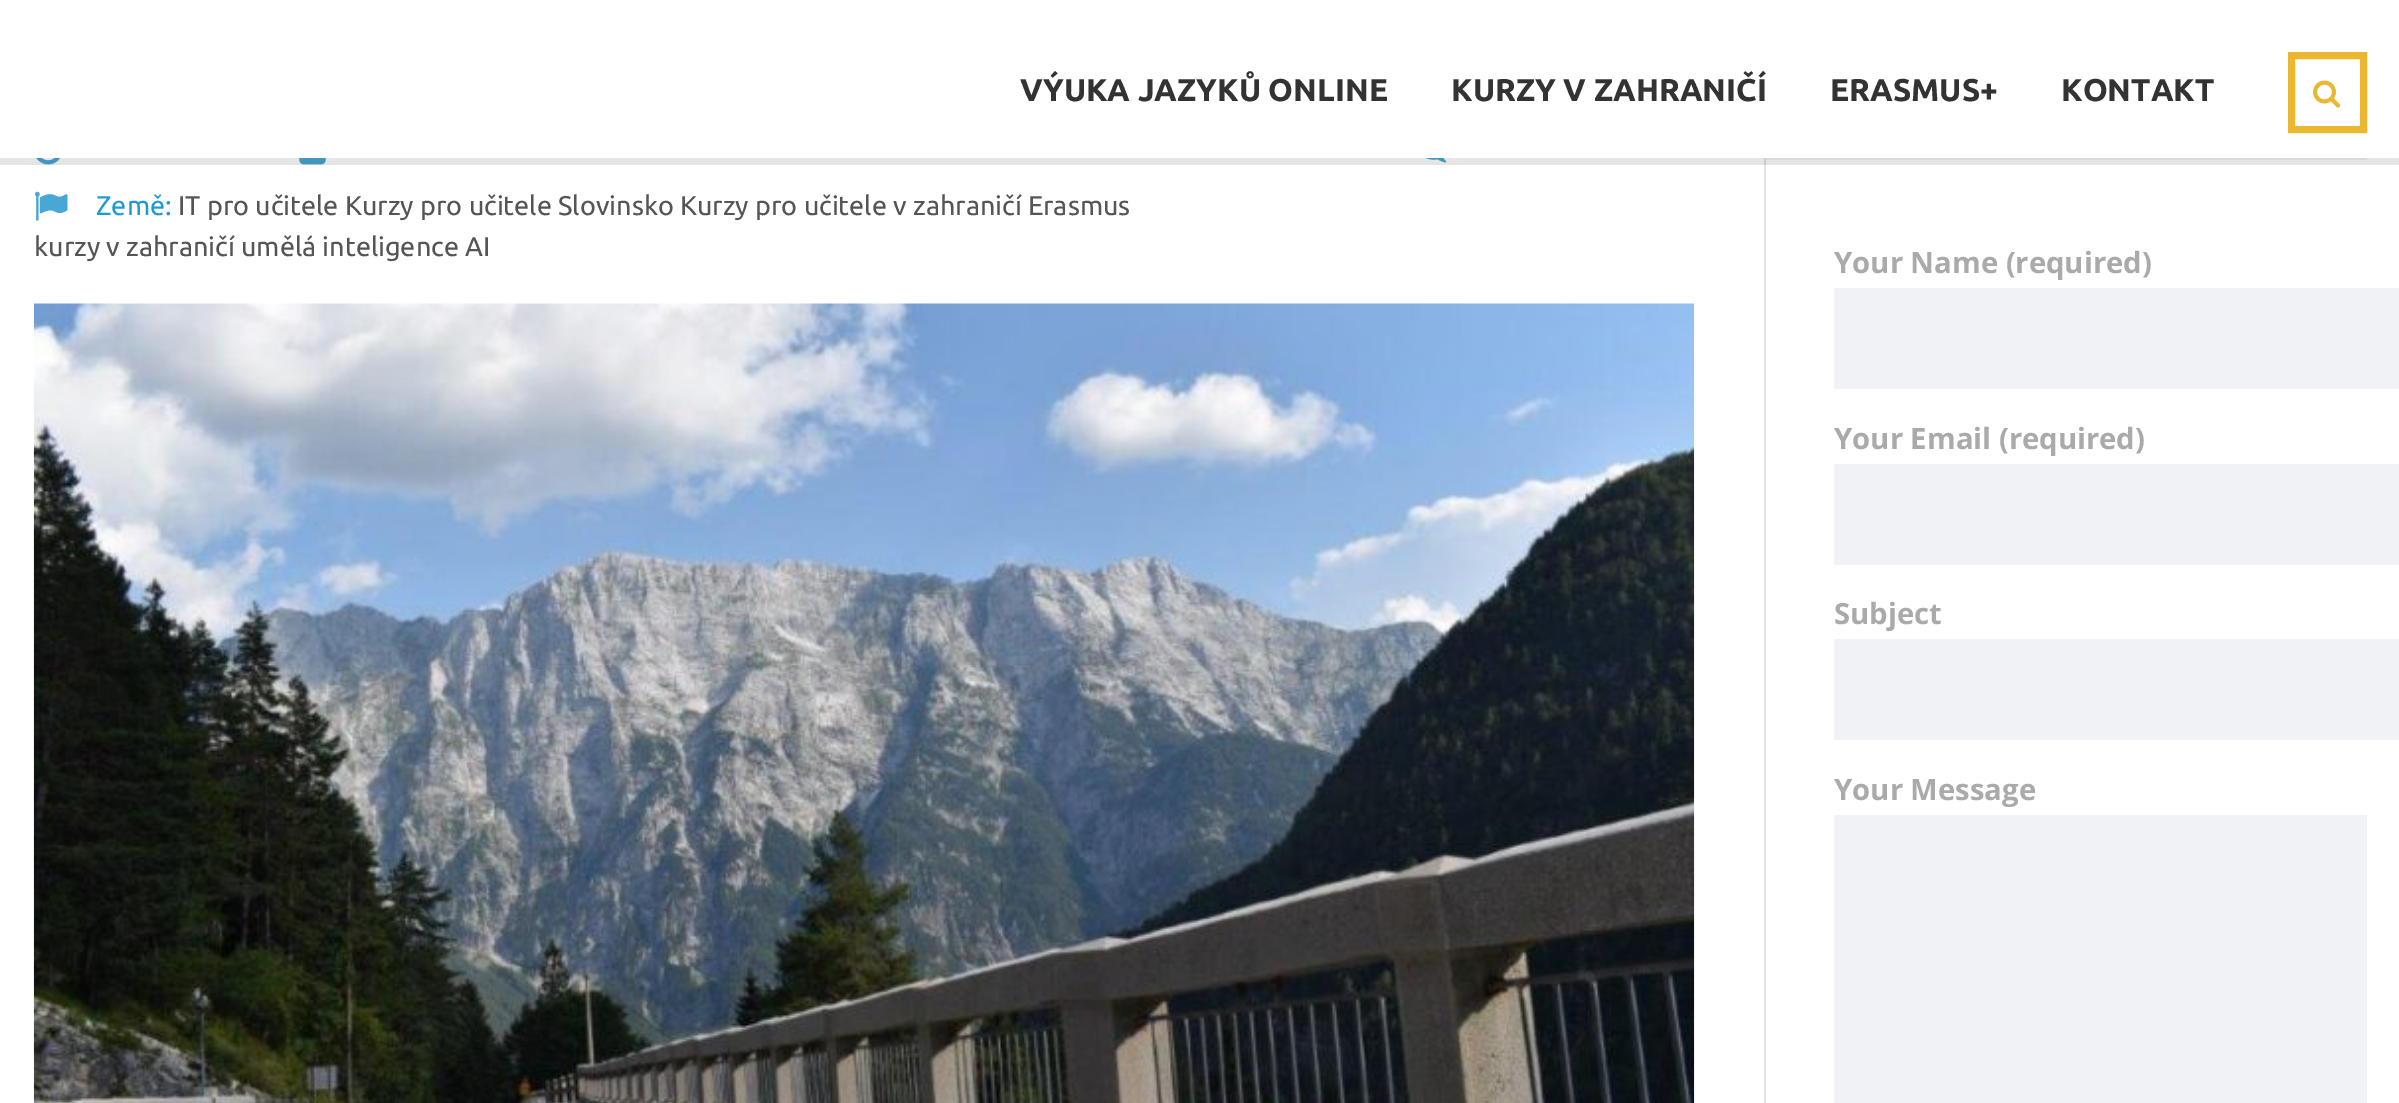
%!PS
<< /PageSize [2399 1103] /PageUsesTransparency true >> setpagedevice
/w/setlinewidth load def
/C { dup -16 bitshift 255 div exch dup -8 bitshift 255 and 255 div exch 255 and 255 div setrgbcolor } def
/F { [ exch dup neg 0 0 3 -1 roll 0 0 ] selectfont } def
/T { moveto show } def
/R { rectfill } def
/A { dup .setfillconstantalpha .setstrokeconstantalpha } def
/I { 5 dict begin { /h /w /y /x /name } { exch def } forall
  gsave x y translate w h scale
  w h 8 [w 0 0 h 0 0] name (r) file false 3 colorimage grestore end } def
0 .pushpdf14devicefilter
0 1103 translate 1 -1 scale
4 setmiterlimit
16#FFFFFF C
0 0 2399 1103 R
/Ubuntu-Bold 31.5 F
16#333333 C
(VÝUKA JAZYKŮ ONLINE) 1020 101 T
(KURZY V ZAHRANIČÍ) 1451 101 T
(ERASMUS+) 1830 101 T
(KONTAKT) 2061 101 T
16#EAB830 C
7 w
2291.5 55.5 72 74 rectstroke
(1.rgb) 2313 80 28 28 I
(2.rgb) 1426 158 21 5 I
(3.rgb) 36 158 25 7 I
(4.rgb) 299 158 27 7 I
16#E1E2E4 C
1764 158 2 945 R
16#F0F2F5 C
1766 158 601 2 R
0.1 A
16#000000 C
0 158 2399 7 R
1 A
(5.rgb) 35 191 33 30 I
/Ubuntu-Regular 27 F
16#1F9AD3 C
(Země:) 96 215 T
16#555555 C
(IT pro učitele Kurzy pro učitele Slovinsko Kurzy pro učitele v zahraničí Erasmus) 178 215 T
(kurzy v zahraničí umělá inteligence AI) 34 256 T
(6.rgb) 33 303 1662 800 I
/OpenSans-Bold 29.25 F
16#AAAAAA C
(Your Name \(required\)) 1834 273 T
16#F0F2F5 C
1834 288 565 101 R
16#AAAAAA C
(Your Email \(required\)) 1834 449 T
16#F0F2F5 C
1834 464 565 101 R
16#AAAAAA C
(Subject) 1834 624 T
16#F0F2F5 C
1834 639 565 101 R
16#AAAAAA C
(Your Message) 1834 800 T
16#F0F2F5 C
1834 815 533 288 R
.poppdf14devicefilter showpage
